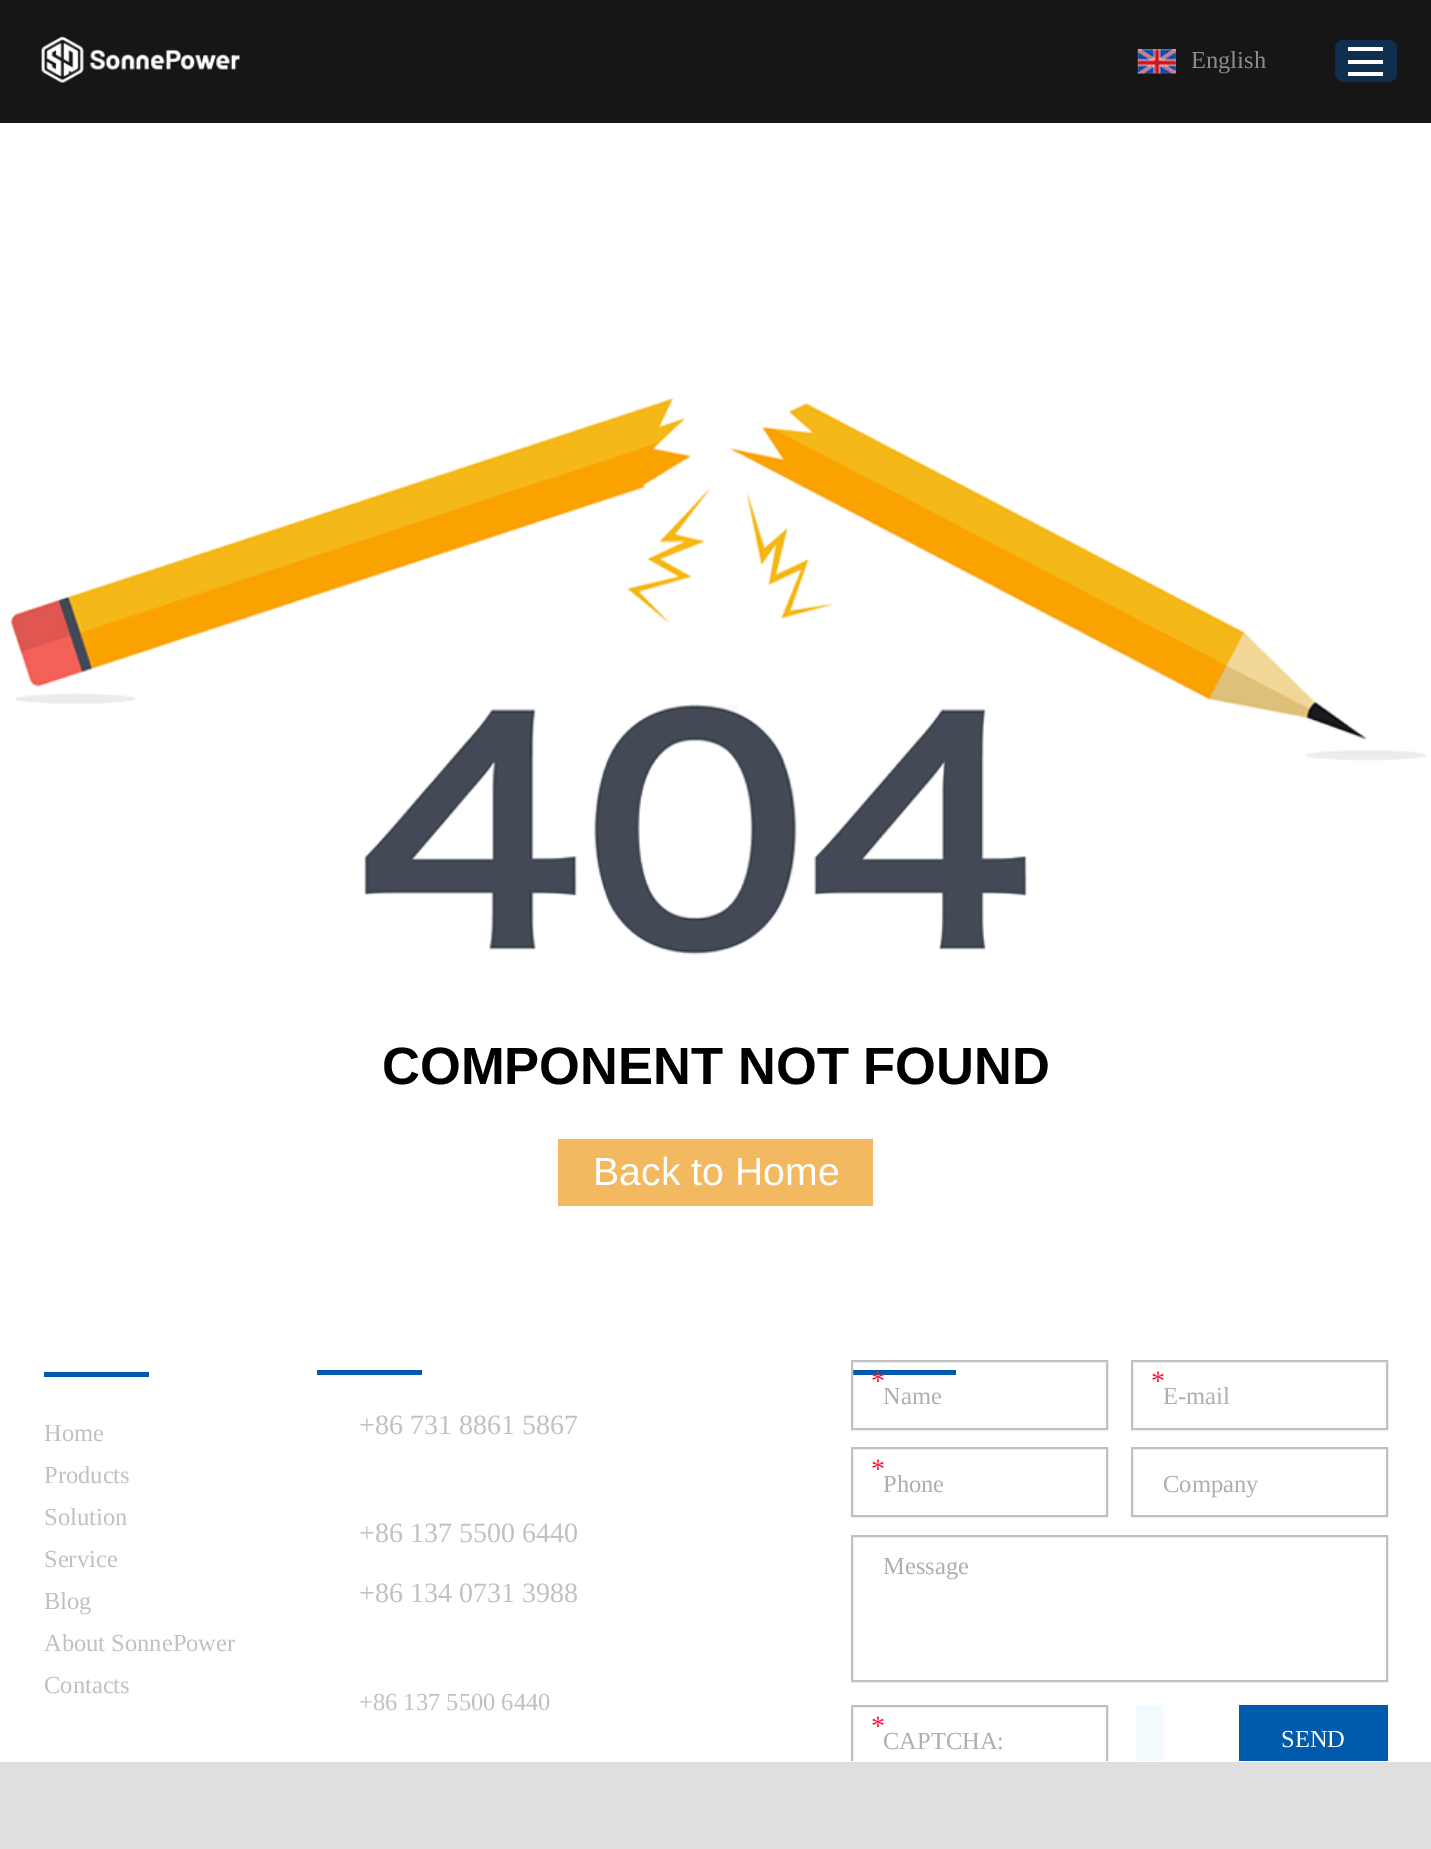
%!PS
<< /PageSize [1431 1849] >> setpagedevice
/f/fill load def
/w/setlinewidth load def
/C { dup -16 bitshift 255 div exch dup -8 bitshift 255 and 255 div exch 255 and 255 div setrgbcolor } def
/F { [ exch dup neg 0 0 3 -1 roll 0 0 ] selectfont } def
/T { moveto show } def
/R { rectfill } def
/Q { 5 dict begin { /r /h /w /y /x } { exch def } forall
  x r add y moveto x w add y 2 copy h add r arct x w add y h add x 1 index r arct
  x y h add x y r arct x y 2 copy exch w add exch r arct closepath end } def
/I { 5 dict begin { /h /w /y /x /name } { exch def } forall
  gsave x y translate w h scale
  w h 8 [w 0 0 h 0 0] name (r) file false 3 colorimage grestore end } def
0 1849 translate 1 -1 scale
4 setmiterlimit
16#FFFFFF C
0 0 1431 1849 R
16#161616 C
0 0 1431 123 R
(1.rgb) 41 36 199 47 I
(2.rgb) 1137 49 39 25 I
/LiberationSerif-Regular 24.5 F
16#8C8C8C C
(English) 1191 68 T
16#0E2F4D C
1335 40 62 42 9 Q f
16#FFFFFF C
1348 47 35 4 R
1348 60 35 4 R
1348 72 35 4 R
(3.rgb) 10 397 1417 558 I
/LiberationSans-Bold 52.5 F
16#000000 C
(COMPONENT NOT FOUND) 382 1084 T
16#F2B961 C
558 1139 315 67 R
/LiberationSans-Regular 39.25 F
16#FFFFFF C
(Back to Home) 593 1185 T
16#005BAC C
44 1372 105 5 R
/LiberationSerif-Regular 24.5 F
16#C1C1C1 C
(Home) 44 1441 T
(Products) 44 1483 T
(Solution) 44 1525 T
(Service) 44 1567 T
(Blog) 44 1609 T
(About SonnePower) 44 1651 T
(Contacts) 44 1693 T
16#005BAC C
317 1370 105 5 R
/LiberationSerif-Regular 28 F
16#C1C1C1 C
(+86 731 8861 5867) 359 1434 T
(+86 137 5500 6440) 359 1542 T
(+86 134 0731 3988) 359 1602 T
/LiberationSerif-Regular 24.5 F
(+86 137 5500 6440) 359 1710 T
16#005BAC C
851 1370 105 5 R
16#C1C1C1 C
2 w
852 1361 255 68 rectstroke
/LiberationSerif-Regular 28 F
16#FA193E C
(*) 871 1390 T
/LiberationSerif-Regular 24.5 F
16#AFAFAF C
(Name) 883 1404 T
16#C1C1C1 C
1132 1361 255 68 rectstroke
/LiberationSerif-Regular 28 F
16#FA193E C
(*) 1151 1390 T
/LiberationSerif-Regular 24.5 F
16#AFAFAF C
(E-mail) 1163 1404 T
16#C1C1C1 C
852 1448 255 68 rectstroke
/LiberationSerif-Regular 28 F
16#FA193E C
(*) 871 1478 T
/LiberationSerif-Regular 24.5 F
16#AFAFAF C
(Phone) 883 1492 T
16#C1C1C1 C
1132 1448 255 68 rectstroke
16#AFAFAF C
(Company) 1163 1492 T
16#C1C1C1 C
852 1536 535 145 rectstroke
16#AFAFAF C
(Message) 883 1574 T
16#C1C1C1 C
852 1706 255 68 rectstroke
/LiberationSerif-Regular 28 F
16#FA193E C
(*) 871 1735 T
/LiberationSerif-Regular 24.5 F
16#AFAFAF C
(CAPTCHA:) 883 1749 T
16#F3FBFE C
1136 1705 28 56 R
16#005BAC C
1239 1705 149 56 R
16#FFFFFF C
(SEND) 1281 1747 T
851 1761 257 1 R
16#DFDFDF C
0 1762 716 87 R
716 1762 715 87 R
showpage
